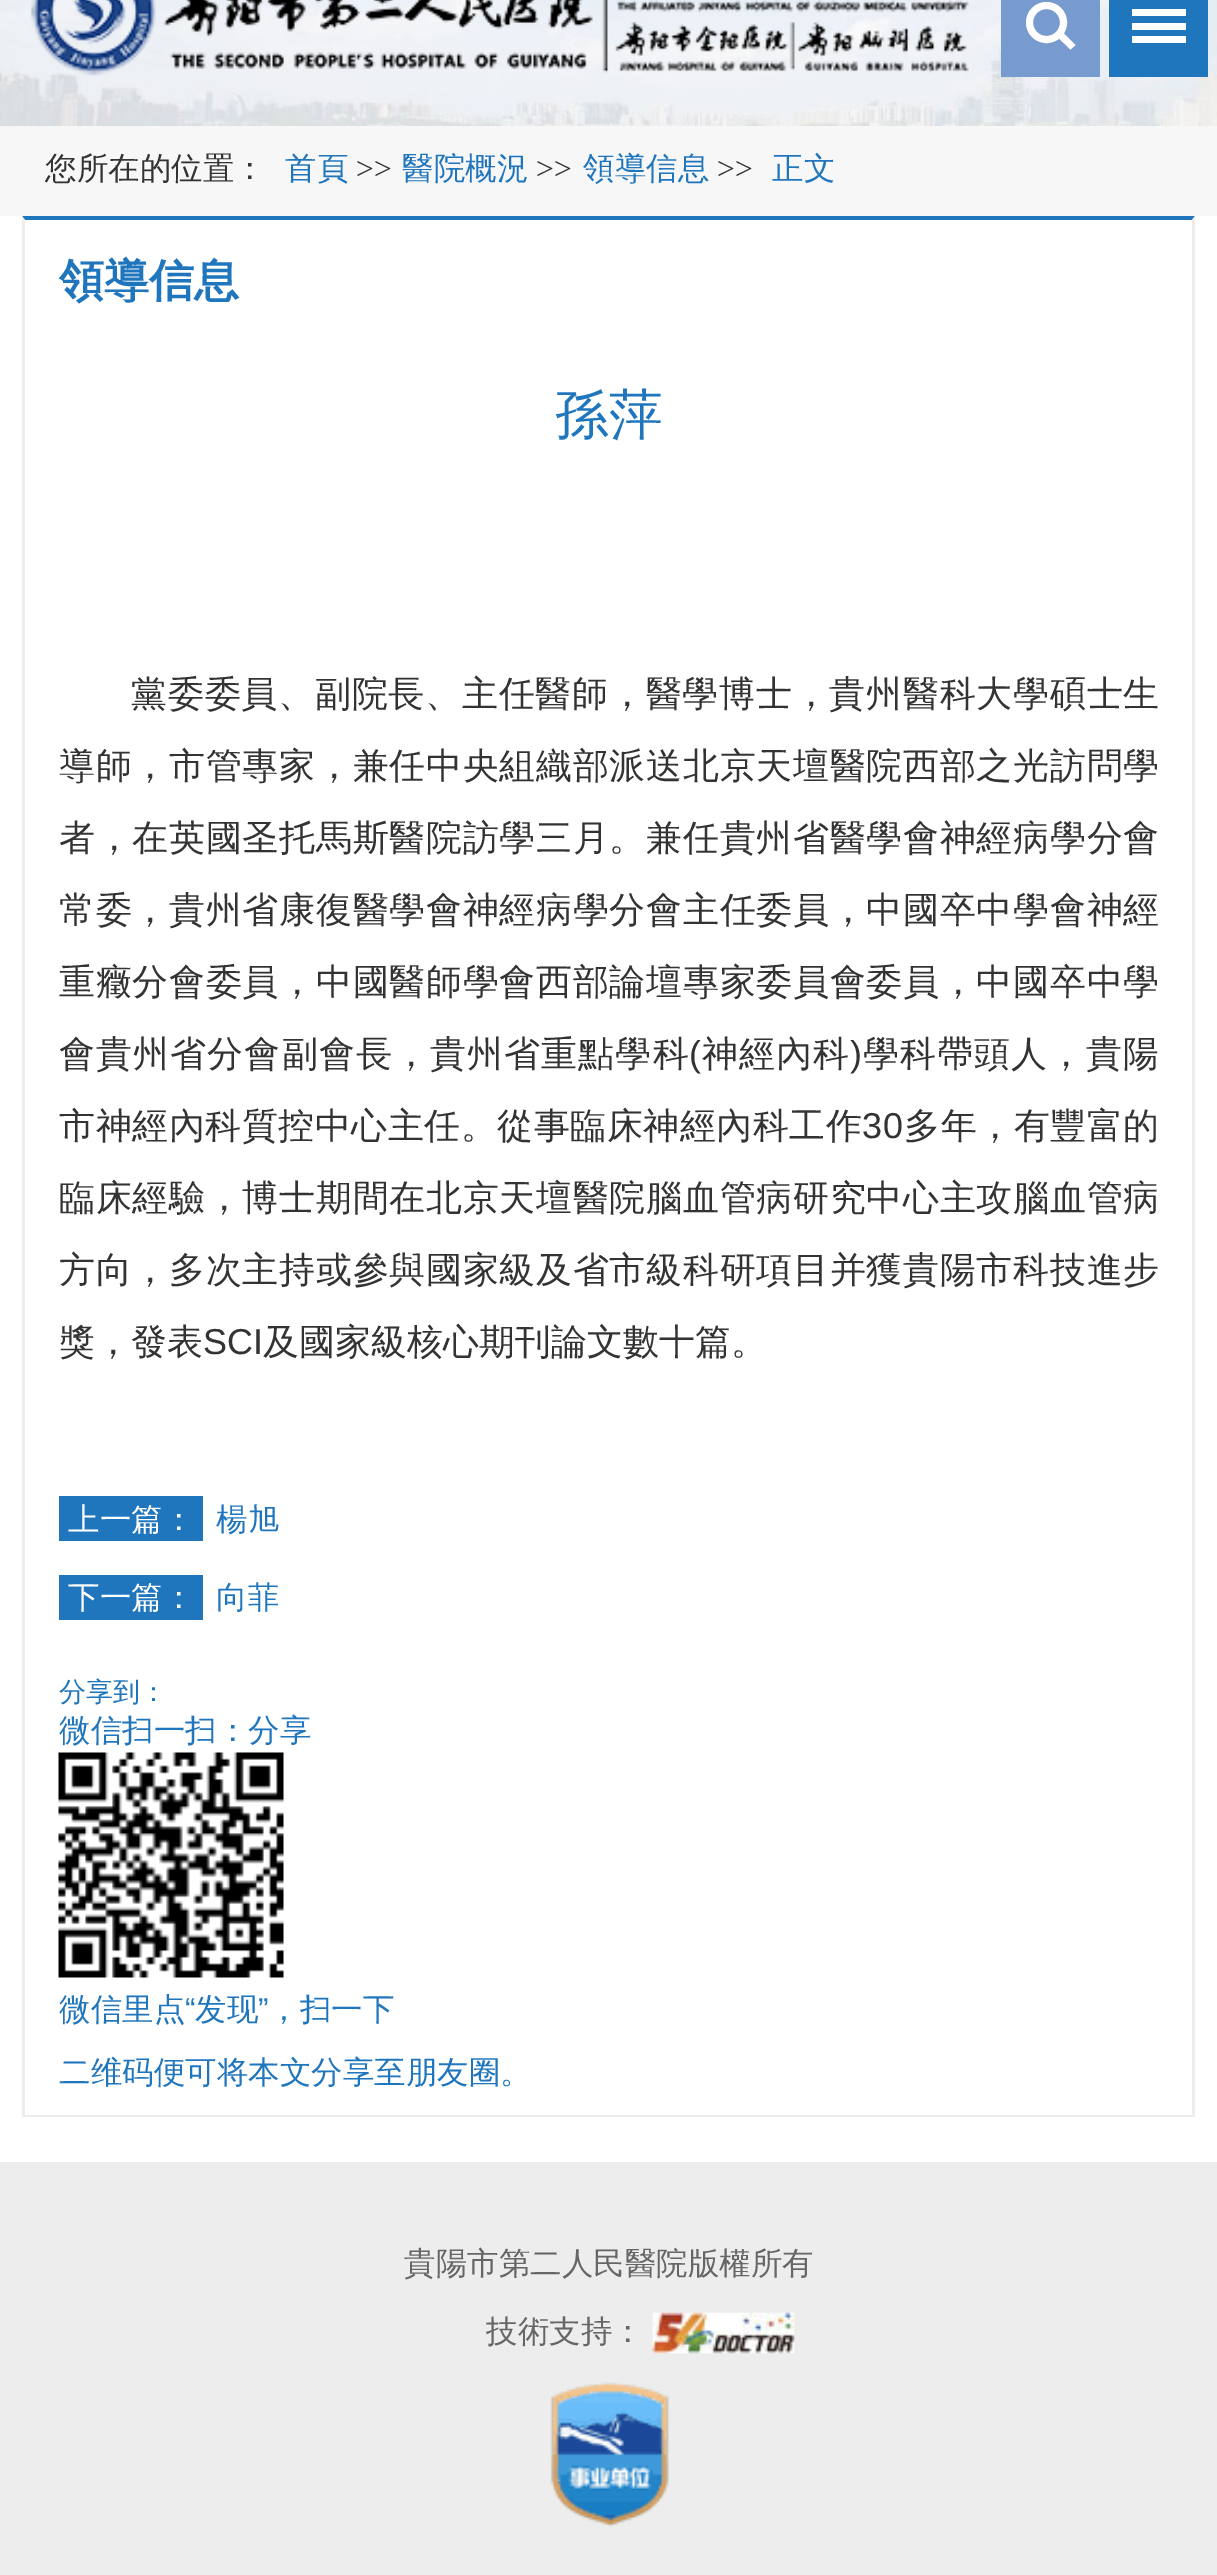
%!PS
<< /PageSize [1217 2575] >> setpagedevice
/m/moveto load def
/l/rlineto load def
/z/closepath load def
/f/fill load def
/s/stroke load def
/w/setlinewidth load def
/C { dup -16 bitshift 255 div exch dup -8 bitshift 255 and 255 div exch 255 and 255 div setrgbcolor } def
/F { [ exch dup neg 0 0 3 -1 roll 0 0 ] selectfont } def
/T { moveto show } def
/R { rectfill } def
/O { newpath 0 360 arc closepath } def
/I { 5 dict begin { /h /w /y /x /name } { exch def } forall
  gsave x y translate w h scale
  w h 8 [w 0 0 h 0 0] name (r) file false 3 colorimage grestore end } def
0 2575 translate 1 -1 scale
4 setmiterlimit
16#FFFFFF C
0 0 1217 2575 R
(1.rgb) 0 0 1217 126 I
(2.rgb) 30 0 939 76 I
16#779ACF C
1001 0 99 77 R
16#FFFFFF C
7 w
1046.5 22.5 17 O s
1062.5 32 m 13 13 l -5 4.5 l -13 -12.5 l z f
16#2076BD C
1109 0 99 77 R
16#FFFFFF C
1132 23 54 7 R
1132 9 54 7 R
1132 36 54 7 R
16#F7F7F7 C
0 126 1217 90 R
/WenQuanYiZenHei-Medium 31.5 F
16#333333 C
(您所在的位置：) 45 179 T
16#2076BD C
(首頁) 285 179 T
/LiberationSerif-Regular 31.5 F
16#333333 C
(>>) 356 179 T
/WenQuanYiZenHei-Medium 31.5 F
16#2076BD C
(醫院概況) 402 179 T
/LiberationSerif-Regular 31.5 F
16#333333 C
(>>) 536 179 T
/WenQuanYiZenHei-Medium 31.5 F
16#2076BD C
(領導信息) 583 179 T
/LiberationSerif-Regular 31.5 F
16#333333 C
(>>) 717 179 T
/WenQuanYiZenHei-Medium 31.5 F
16#2076BD C
(正文) 772 179 T
22 216 m 1173 0 l -3 4 l -1167 0 l z f
16#EDEDED C
1195 216 m 0 1901 l -3 -2 l 0 -1895 l z f
23 2115 1172 2 R
22 2117 m 0 -1901 l 3 4 l 0 1895 l z f
/WenQuanYiZenHei-Bold 45 F
16#2076BD C
(領導信息) 59 296 T
/WenQuanYiZenHei-Medium 54 F
(孫萍) 555 433 T
/WenQuanYiZenHei-Medium 36 F
16#333333 C
131 706 m .75 0 (黨委委員、副院長、主任醫師，醫學博士，貴州醫科大學碩士生) ashow
59 778 m .7 0 (導師，市管專家，兼任中央組織部派送北京天壇醫院西部之光訪問學) ashow
59 850 m .7 0 (者，在英國圣托馬斯醫院訪學三月。兼任貴州省醫學會神經病學分會) ashow
59 922 m .7 0 (常委，貴州省康復醫學會神經病學分會主任委員，中國卒中學會神經) ashow
59 994 m .7 0 (重癥分會委員，中國醫師學會西部論壇專家委員會委員，中國卒中學) ashow
59 1066 m 1.1 0 (會貴州省分會副會長，貴州省重點學科) ashow
/LiberationSans-Regular 36 F
689 1066 m 1.1 0 (\() ashow
/WenQuanYiZenHei-Medium 36 F
702 1066 m 1.1 0 (神經內科) ashow
/LiberationSans-Regular 36 F
850 1066 m 1.1 0 (\)) ashow
/WenQuanYiZenHei-Medium 36 F
863 1066 m 1.1 0 (學科帶頭人，貴陽) ashow
59 1138 m .5 0 (市神經內科質控中心主任。從事臨床神經內科工作) ashow
/LiberationSans-Regular 36 F
862 1138 m .5 0 (30) ashow
/WenQuanYiZenHei-Medium 36 F
904 1138 m .5 0 (多年，有豐富的) ashow
59 1210 m .7 0 (臨床經驗，博士期間在北京天壇醫院腦血管病研究中心主攻腦血管病) ashow
59 1282 m .7 0 (方向，多次主持或參與國家級及省市級科研項目并獲貴陽市科技進步) ashow
(獎，發表) 59 1354 T
/LiberationSans-Regular 36 F
(SCI) 203 1354 T
/WenQuanYiZenHei-Medium 36 F
(及國家級核心期刊論文數十篇。) 263 1354 T
16#2076BD C
59 1496 144 45 R
/WenQuanYiZenHei-Medium 31.5 F
16#FFFFFF C
(上一篇：) 68 1530 T
16#2076BD C
(楊旭) 216 1530 T
59 1575 144 45 R
16#FFFFFF C
(下一篇：) 68 1608 T
16#2076BD C
(向菲) 216 1608 T
/WenQuanYiZenHei-Medium 27 F
(分享到：) 59 1701 T
/WenQuanYiZenHei-Medium 31.5 F
(微信扫一扫：分享) 59 1741 T
(3.rgb) 58 1752 226 226 I
(微信里点) 59 2020 T
/LiberationSans-Regular 31.5 F
(“) 185 2020 T
/WenQuanYiZenHei-Medium 31.5 F
(发现) 195 2020 T
/LiberationSans-Regular 31.5 F
(”) 258 2020 T
/WenQuanYiZenHei-Medium 31.5 F
(，扫一下) 268 2020 T
(二维码便可将本文分享至朋友圈。) 59 2083 T
16#EDEDED C
0 2162 1217 413 R
16#666666 C
(貴陽市第二人民醫院版權所有) 404 2274 T
(技術支持：) 486 2342 T
(4.rgb) 652 2312 143 42 I
(5.rgb) 550 2382 119 145 I
showpage
